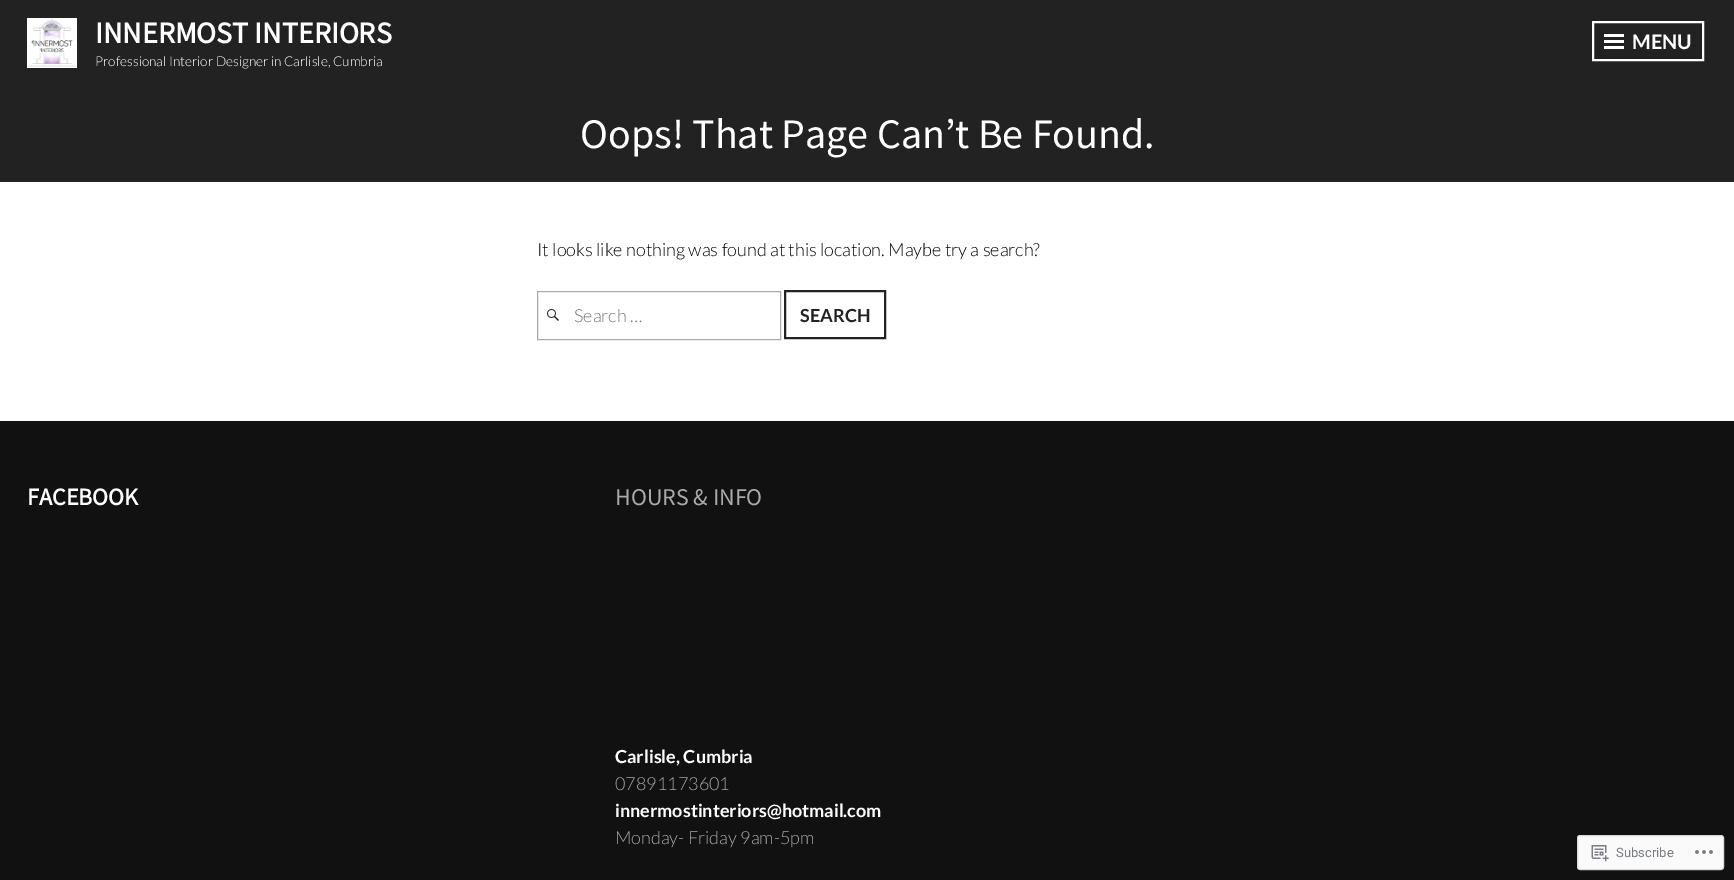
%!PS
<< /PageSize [1734 880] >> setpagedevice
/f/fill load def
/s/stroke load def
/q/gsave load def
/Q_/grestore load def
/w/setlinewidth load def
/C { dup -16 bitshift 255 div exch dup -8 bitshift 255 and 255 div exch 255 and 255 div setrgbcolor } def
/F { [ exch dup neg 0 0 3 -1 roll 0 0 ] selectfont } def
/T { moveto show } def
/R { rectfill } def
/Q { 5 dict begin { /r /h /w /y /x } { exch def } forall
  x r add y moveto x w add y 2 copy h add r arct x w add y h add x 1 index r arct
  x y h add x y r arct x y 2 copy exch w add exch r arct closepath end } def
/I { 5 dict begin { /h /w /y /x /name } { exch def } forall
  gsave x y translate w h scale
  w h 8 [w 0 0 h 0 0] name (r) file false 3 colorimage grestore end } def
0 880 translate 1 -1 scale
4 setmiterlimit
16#FFFFFF C
0 0 1734 880 R
16#222222 C
0 0 1734 182 R
(1.rgb) 27 18 50 50 I
/SourceSansPro-Bold 30 F
16#FFFFFF C
(INNERMOST INTERIORS) 95 43 T
/Lato-Light 13.5 F
(Professional Interior Designer in Carlisle, Cumbria) 95 66 T
2 w
1593 22 110 38 rectstroke
1604 40 20 3 R
1604 34 20 3 R
1604 46 20 3 R
/Lato-Bold 20 F
(MENU) 1632 49 T
/SourceSansPro-Regular 42 F
(Oops! That Page Can’t Be Found.) 580 148 T
/Lato-Light 18 F
16#000000 C
(It looks like nothing was found at this location. Maybe try a search?) 537 256 T
16#AAAAAA C
1 w
537.5 291.5 243 48 rectstroke
(2.rgb) 547 309 12 12 I
16#757575 C
(Search …) 574 322 T
16#222222 C
2 w
785 291 100 47 rectstroke
/Lato-Bold 18 F
(SEARCH) 800 322 T
16#111111 C
0 421 1734 459 R
/SourceSansPro-Bold 24 F
16#FFFFFF C
(FACEBOOK) 27 505 T
/SourceSansPro-Regular 24 F
16#AAAAAA C
(HOURS & INFO) 615 505 T
/Lato-Bold 18 F
16#FFFFFF C
(Carlisle, Cumbria) 615 763 T
/Lato-Light 18 F
16#AAAAAA C
(07891173601) 615 790 T
/Lato-Bold 18 F
16#FFFFFF C
(innermostinteriors@hotmail.com) 615 817 T
/Lato-Light 18 F
16#AAAAAA C
(Monday- Friday 9am-5pm) 615 844 T
16#FAFAFA C
1577.5 835.5 146 34 2.5 Q q f Q_
16#D8D8DA C
1 w
s
(3.rgb) 1591 845 18 17 I
/Roboto-Regular 13 F
16#767A80 C
(Subscribe) 1616 857 T
(4.rgb) 1695 850 18 4 I
showpage
